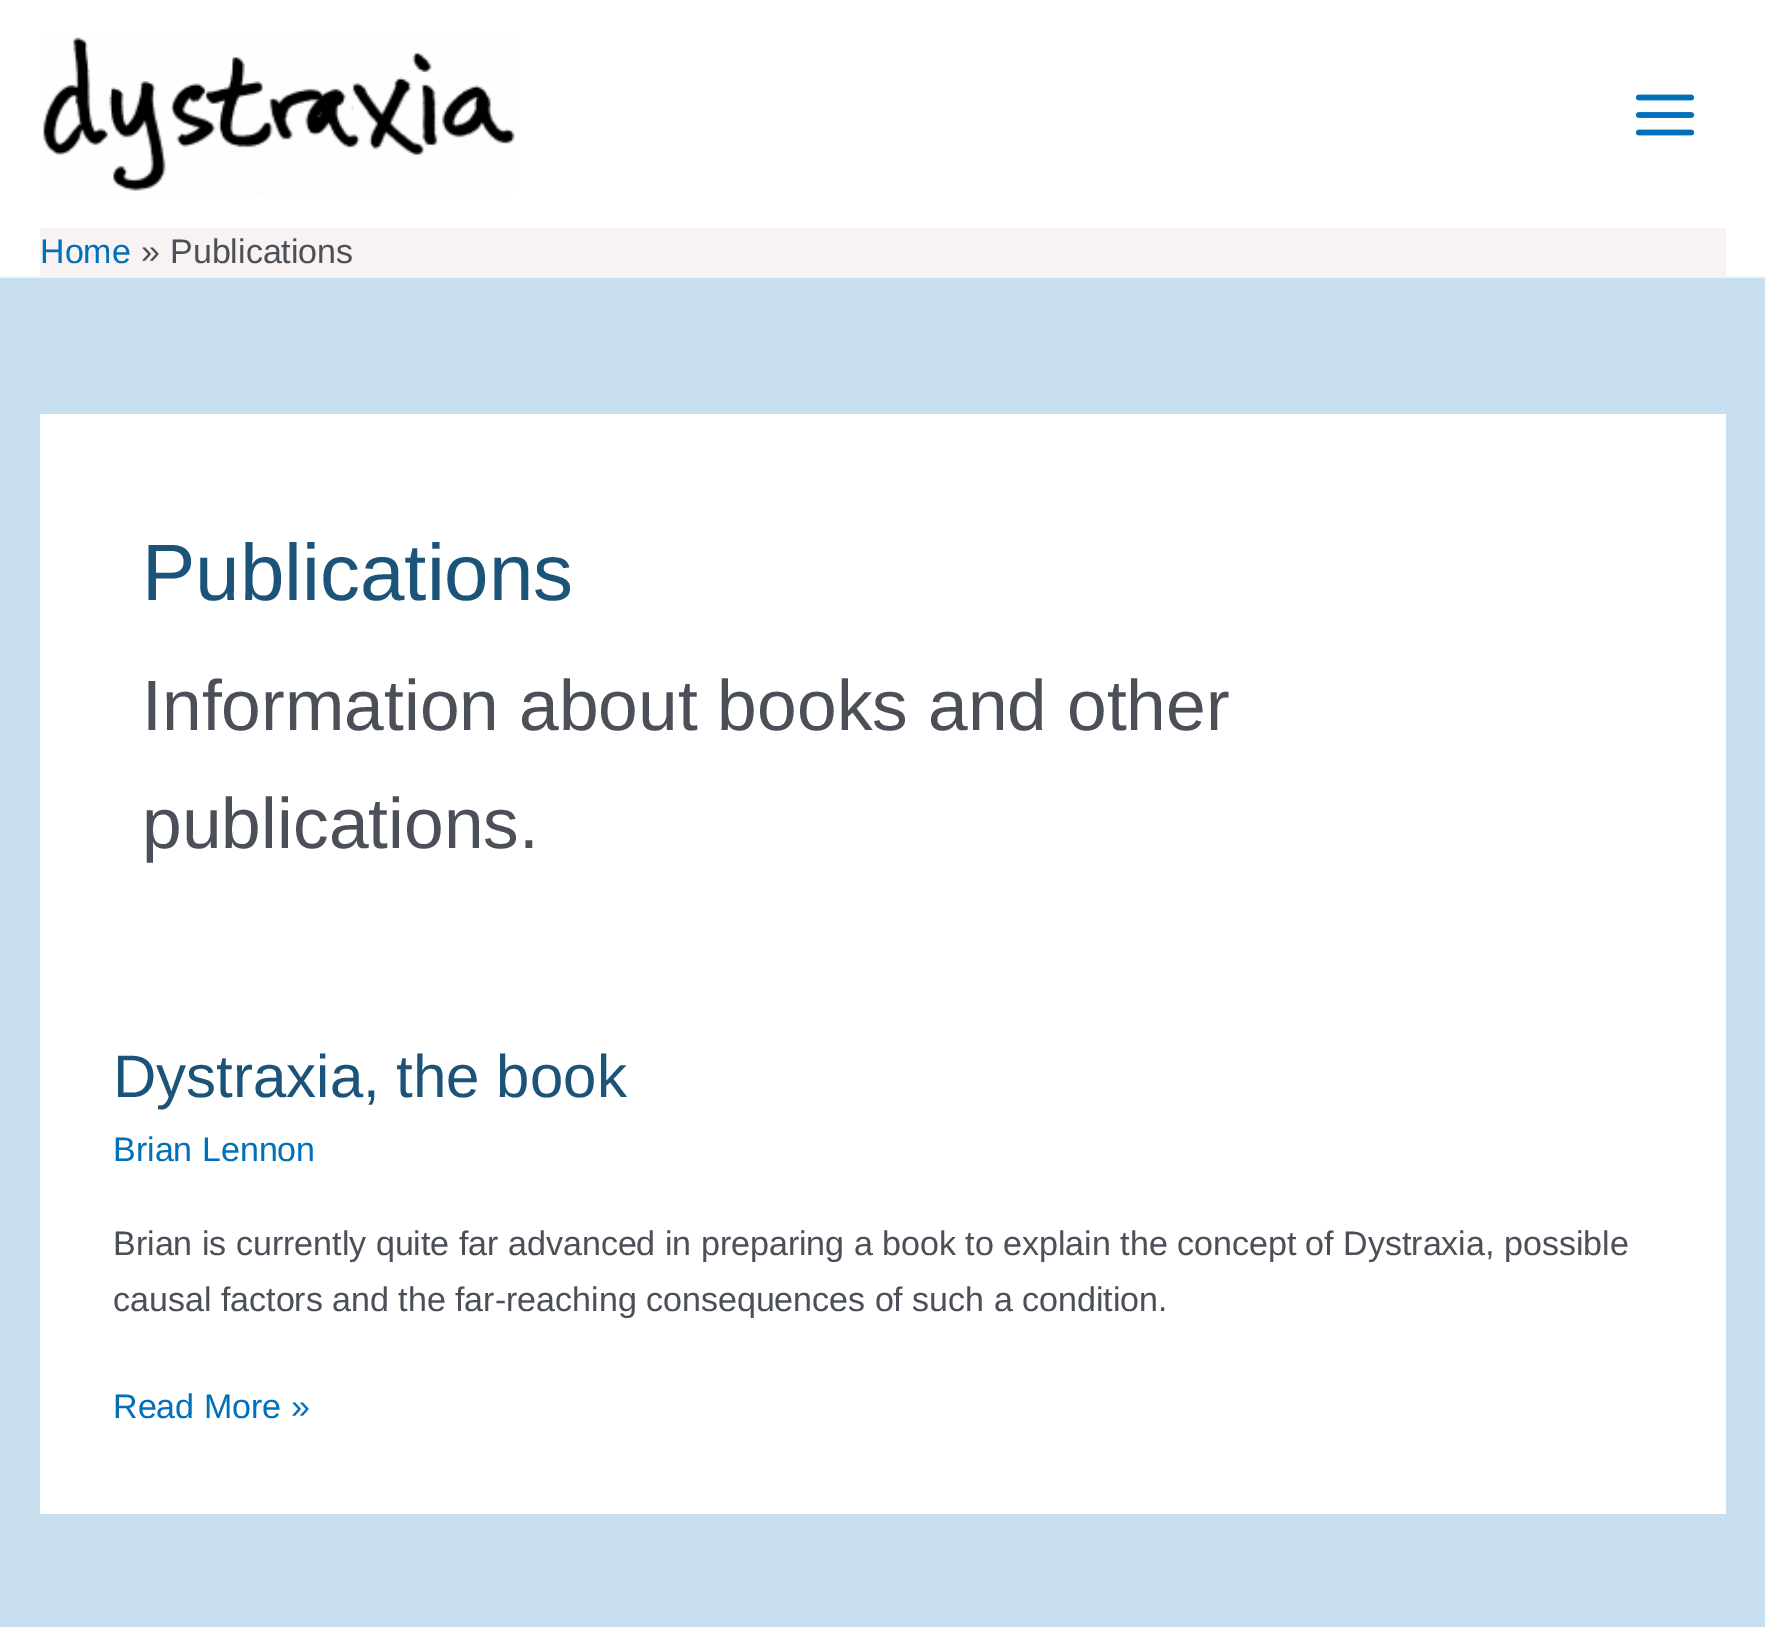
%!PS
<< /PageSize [1765 1627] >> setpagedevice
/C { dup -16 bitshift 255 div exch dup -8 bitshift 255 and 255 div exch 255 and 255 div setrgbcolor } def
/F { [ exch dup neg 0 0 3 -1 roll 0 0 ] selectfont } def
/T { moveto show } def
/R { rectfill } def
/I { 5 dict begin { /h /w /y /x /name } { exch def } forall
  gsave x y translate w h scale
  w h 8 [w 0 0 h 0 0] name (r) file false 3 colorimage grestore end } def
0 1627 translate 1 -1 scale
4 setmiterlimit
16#C7DFEF C
0 0 1765 1627 R
16#FFFFFF C
0 0 1765 276 R
16#F2F5F7 C
0 276 1765 2 R
(1.rgb) 42 37 474 157 I
(2.rgb) 1635 94 60 42 I
16#F8F2F2 C
40 228 1686 48 R
/LiberationSans-Regular 34 F
16#0170B9 C
(Home) 40 263 T
16#4B4F58 C
(») 141 263 T
(Publications) 170 263 T
16#FFFFFF C
40 414 1686 1100 R
/LiberationSans-Regular 80 F
16#1C5378 C
(Publications) 142 600 T
/LiberationSans-Regular 71.4 F
16#4B4F58 C
(Information about books and other) 142 730 T
(publications.) 142 848 T
/LiberationSans-Regular 60 F
16#1C5378 C
(Dystraxia, the book) 113 1097 T
/LiberationSans-Regular 34 F
16#0170B9 C
(Brian Lennon) 113 1161 T
16#4B4F58 C
(Brian is currently quite far advanced in preparing a book to explain the concept of Dystraxia, possible) 113 1255 T
(causal factors and the far-reaching consequences of such a condition.) 113 1311 T
16#0170B9 C
(Read More ») 113 1418 T
showpage
